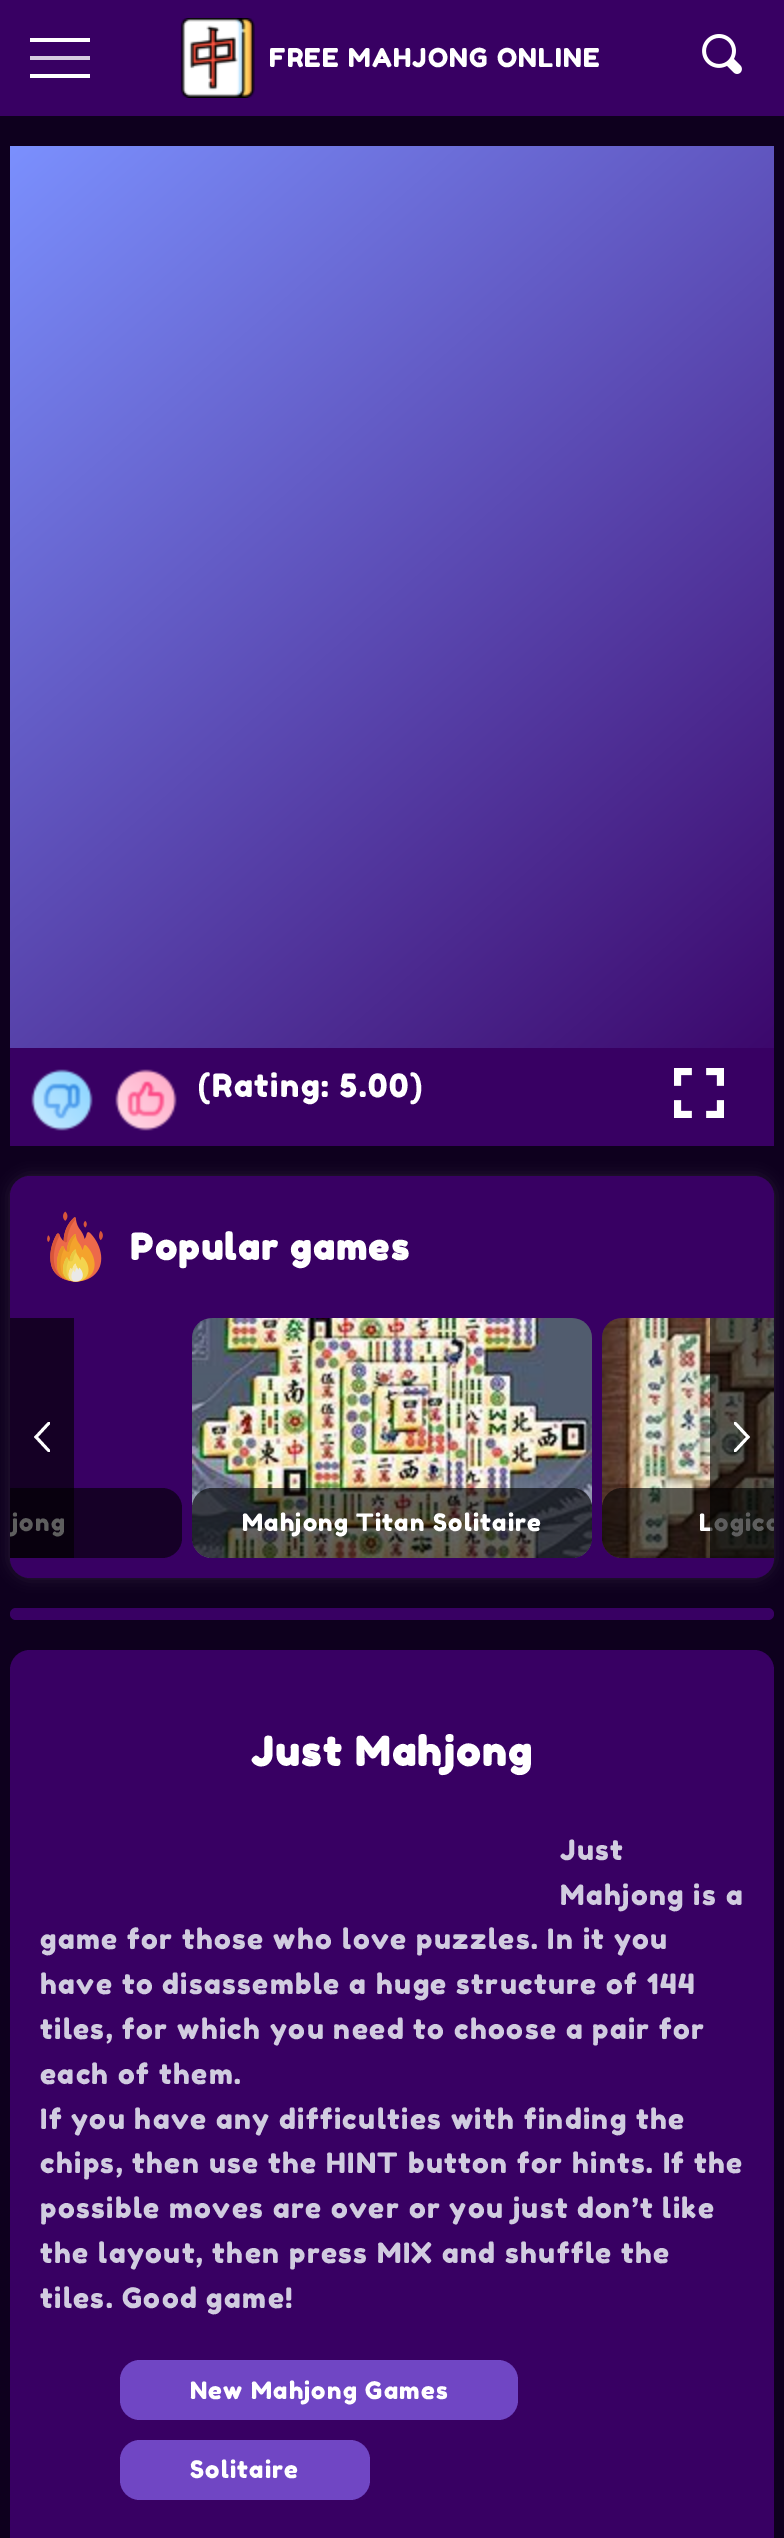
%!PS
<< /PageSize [784 2538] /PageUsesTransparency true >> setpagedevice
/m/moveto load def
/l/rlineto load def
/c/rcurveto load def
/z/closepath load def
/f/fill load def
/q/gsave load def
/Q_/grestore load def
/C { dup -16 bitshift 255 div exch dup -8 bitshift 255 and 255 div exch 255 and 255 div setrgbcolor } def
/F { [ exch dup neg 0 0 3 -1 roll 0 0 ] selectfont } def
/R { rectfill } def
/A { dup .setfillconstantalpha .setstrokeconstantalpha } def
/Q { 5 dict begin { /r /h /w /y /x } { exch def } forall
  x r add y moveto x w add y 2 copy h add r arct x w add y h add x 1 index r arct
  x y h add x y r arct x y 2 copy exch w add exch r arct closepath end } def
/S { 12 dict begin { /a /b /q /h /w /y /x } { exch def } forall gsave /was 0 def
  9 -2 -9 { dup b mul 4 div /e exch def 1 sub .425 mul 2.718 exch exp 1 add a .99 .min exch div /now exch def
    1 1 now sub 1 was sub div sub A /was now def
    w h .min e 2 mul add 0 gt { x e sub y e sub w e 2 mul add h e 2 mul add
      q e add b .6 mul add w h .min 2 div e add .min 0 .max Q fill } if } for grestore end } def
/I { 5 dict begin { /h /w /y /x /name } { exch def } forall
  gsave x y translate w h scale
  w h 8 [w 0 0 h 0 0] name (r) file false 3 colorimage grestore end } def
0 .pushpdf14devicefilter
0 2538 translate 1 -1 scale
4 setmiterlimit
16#0E001E C
0 0 784 2538 R
16#380063 C
0 0 784 116 R
16#FFFFFF C
30 38 60 4 R
16#D7CCE0 C
30 56 60 4 R
16#FFFFFF C
30 74 60 4 R
(1.rgb) 180 18 75 80 I
/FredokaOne-Regular 26 F
269 67 m 1.25 0 (FREE MAHJONG ONLINE) ashow
(2.rgb) 702 34 40 40 I
q 10 146 m 764 0 l 0 902 l -764 0 l z clip newpath
<< /ShadingType 2 /ColorSpace /DeviceRGB /Coords [-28 167 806 1118] /Extend [true true] /Function << /FunctionType 2 /Domain [0 1] /C0 [.486 .569 1] /C1 [.22 0 .388] /N 1 >> >> shfill Q_
16#380063 C
10 1048 764 98 R
(3.rgb) 31 1069 62 62 I
(4.rgb) 115 1069 62 62 I
/FredokaOne-Regular 32 F
16#FFFFFF C
198 1097 m 1.6 0 (\(Rating: 5.00\)) ashow
(5.rgb) 674 1068 50 50 I
16#757575 C
10 1176 764 402 20 7 .25 S
16#380063 C
10 1176 764 402 20 Q f
16#150025 C
10 1318 64 170 R
(6.rgb) 47 1211 56 71 I
/FredokaOne-Bold 36 F
16#FFFFFF C
130 1260 m 1.75 0 (Popular games) ashow
34 1437 m 14 -15 l 2 0 l 0 2 l -12 13 l 12 13 l 0 2 l -2 0 l z f
16#46126E C
622 1318 m 152 0 l 0 240 l -152 0 l -11 0 -20 -9 -20 -20 c 0 -200 l 0 -11 9 -20 20 -20 c z f
(8.rgb) 602 1318 172 240 I
0.61 A
16#000000 C
622 1488 m 152 0 l 0 70 l -152 0 l -11 0 -20 -9 -20 -20 c 0 -30 l 0 -11 9 -20 20 -20 c z f
q
10 1278 764 280 rectclip
/FredokaOne-Regular 24 F
1 A
16#FFFFFF C
699 1531 m 1.2 0 (Logica) ashow
Q_
0.63 A
710 1318 64 240 R
1 A
16#FFFFFF C
750 1437 m -14 15 l -2 0 l 0 -2 l 12 -13 l -12 -13 l 0 -2 l 2 0 l z f
16#160027 C
10 1488 m 152 0 l 11 0 20 9 20 20 c 0 30 l 0 11 -9 20 -20 20 c -152 0 l z f
16#08000E C
10 1488 64 70 R
q
10 1278 764 280 rectclip
/FredokaOne-Regular 24 F
16#5E5E5E C
12 1531 m 1.2 0 (jong) ashow
Q_
16#46126E C
192 1318 400 240 20 Q f
(7.rgb) 192 1318 400 240 I
0.61 A
16#000000 C
192 1488 400 70 20 Q f
/FredokaOne-Regular 24 F
1 A
16#FFFFFF C
242 1531 m 1.2 0 (Mahjong Titan Solitaire) ashow
16#380063 C
10 1608 764 12 6 Q f
10 1650 764 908 20 Q f
/FredokaOne-Bold 40 F
16#FFFFFF C
251 1766 m 2 0 (Just Mahjong) ashow
/FredokaOne-Regular 28 F
16#D1CCE0 C
560 1860 m 1.4 0 (Just) ashow
560 1905 m 1.4 0 (Mahjong is a) ashow
40 1949 m 1.4 0 (game for those who love puzzles. In it you) ashow
40 1994 m 1.4 0 (have to disassemble a huge structure of 144) ashow
40 2039 m 1.4 0 (tiles, for which you need to choose a pair for) ashow
40 2084 m 1.4 0 (each of them.) ashow
40 2129 m 1.4 0 (If you have any difficulties with finding the) ashow
40 2173 m 1.4 0 (chips, then use the HINT button for hints. If the) ashow
40 2218 m 1.4 0 (possible moves are over or you just don’t like) ashow
40 2263 m 1.4 0 (the layout, then press MIX and shuffle the) ashow
40 2308 m 1.4 0 (tiles. Good game!) ashow
16#7046C4 C
120 2360 398 60 20 Q f
/FredokaOne-Regular 24 F
16#FFFFFF C
190 2399 m 1.2 0 (New Mahjong Games) ashow
16#7046C4 C
120 2440 250 60 20 Q f
16#FFFFFF C
190 2478 m 1.2 0 (Solitaire) ashow
.poppdf14devicefilter showpage
